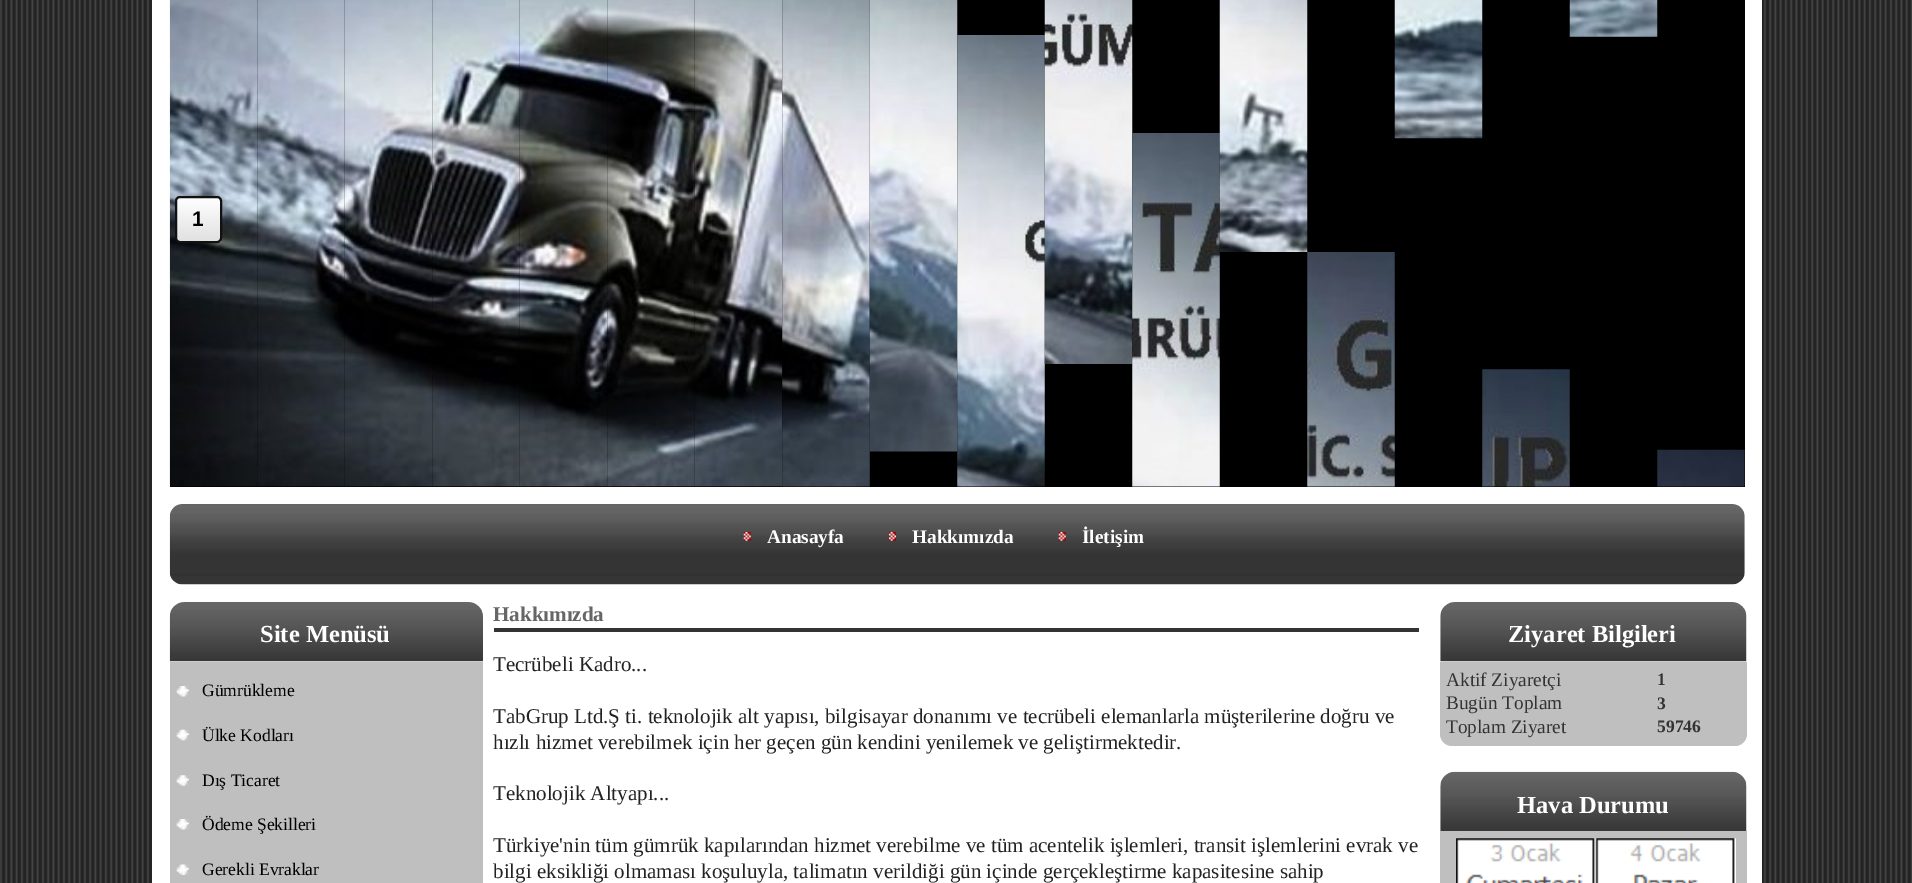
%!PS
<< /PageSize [1912 883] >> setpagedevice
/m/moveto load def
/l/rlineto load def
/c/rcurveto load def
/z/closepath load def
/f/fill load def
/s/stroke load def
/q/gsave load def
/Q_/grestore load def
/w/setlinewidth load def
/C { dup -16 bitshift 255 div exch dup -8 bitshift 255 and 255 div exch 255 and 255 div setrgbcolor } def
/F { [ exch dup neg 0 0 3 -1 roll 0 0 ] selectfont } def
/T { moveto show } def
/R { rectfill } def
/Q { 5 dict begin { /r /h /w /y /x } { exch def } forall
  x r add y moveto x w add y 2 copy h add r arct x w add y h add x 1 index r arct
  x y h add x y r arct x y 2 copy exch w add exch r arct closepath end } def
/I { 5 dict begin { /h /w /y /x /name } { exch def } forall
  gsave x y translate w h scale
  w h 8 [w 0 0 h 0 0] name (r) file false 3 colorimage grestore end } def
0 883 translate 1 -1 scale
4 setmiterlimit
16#FFFFFF C
0 0 1912 883 R
(1.rgb) 0 0 1912 883 I
152 0 1610 883 R
16#000000 C
170 0 1575 487 R
(2.rgb) 169 0 89 487 I
(3.rgb) 257 0 88 487 I
(4.rgb) 344 0 89 487 I
(5.rgb) 432 0 88 487 I
(6.rgb) 519 0 89 487 I
(7.rgb) 607 0 88 487 I
(8.rgb) 694 0 89 487 I
(9.rgb) 782 0 88 487 I
(10.rgb) 869 0 89 452 I
(15.rgb) 957 35 88 452 I
(11.rgb) 1044 0 89 364 I
(16.rgb) 1132 133 88 354 I
(12.rgb) 1219 0 89 252 I
(13.rgb) 1394 0 89 139 I
(14.rgb) 1569 0 89 37 I
(17.rgb) 1307 252 88 235 I
(18.rgb) 1482 369 88 118 I
(19.rgb) 1657 449 88 38 I
q 177 198 m 44 0 l 0 44 l -44 0 l z clip newpath
<< /ShadingType 2 /ColorSpace /DeviceRGB /Coords [177 198 177 242] /Extend [true true] /Function << /FunctionType 2 /Domain [0 1] /C0 [1 1 1] /C1 [.878 .878 .878] /N 1 >> >> shfill Q_
16#111111 C
2 w
176 197 45 45 4 Q s
/LiberationSans-Bold 21 F
16#000000 C
(1) 192 226 T
(20.rgb) 169 504 1576 81 I
(21.rgb) 743 532 8 9 I
/LiberationSerif-Bold 19.25 F
16#FFFFFF C
(Anasayfa) 767 543 T
(22.rgb) 889 532 7 9 I
(Hakkımızda) 912 543 T
(21.rgb) 1058 532 8 9 I
(İletişim) 1082 543 T
(23.rgb) 169 602 314 60 I
/LiberationSerif-Bold 24.5 F
(Site Menüsü) 260 642 T
16#BFBFBF C
170 662 313 221 R
(24.rgb) 176 686 13 11 I
/LiberationSerif-Regular 17.5 F
16#000000 C
(Gümrükleme) 202 696 T
(25.rgb) 176 729 13 12 I
(Ülke Kodları) 202 741 T
(26.rgb) 176 775 13 11 I
(Dış Ticaret) 202 786 T
(24.rgb) 176 819 13 11 I
(Ödeme Şekilleri) 202 830 T
(27.rgb) 176 864 13 11 I
(Gerekli Evraklar) 202 875 T
16#333333 C
494 628 925 4 R
/LiberationSerif-Bold 21 F
16#666666 C
(Hakkımızda) 493 621 T
/LiberationSerif-Regular 21 F
16#222222 C
(Tecrübeli Kadro...) 493 671 T
(TabGrup Ltd.Ş ti. teknolojik alt yapısı, bilgisayar donanımı ve tecrübeli elemanlarla müşterilerine doğru ve) 493 723 T
(hızlı hizmet verebilmek için her geçen gün kendini yenilemek ve geliştirmektedir.) 493 749 T
(Teknolojik Altyapı...) 493 800 T
(Türkiye'nin tüm gümrük kapılarından hizmet verebilme ve tüm acentelik işlemleri, transit işlemlerini evrak ve) 493 852 T
(bilgi eksikliği olmaması koşuluyla, talimatın verildiği gün içinde gerçekleştirme kapasitesine sahip) 493 878 T
(28.rgb) 1440 602 307 60 I
/LiberationSerif-Bold 24.5 F
16#FFFFFF C
(Ziyaret Bilgileri) 1508 642 T
16#BFBFBF C
1440 662 m 307 0 l 0 72 l 0 6.5 -5.5 12 -12 12 c -283 0 l -6.5 0 -12 -5.5 -12 -12 c z f
/LiberationSerif-Regular 19.25 F
16#333333 C
(Aktif Ziyaretçi) 1446 686 T
/LiberationSerif-Bold 17.5 F
(1) 1657 685 T
/LiberationSerif-Regular 19.25 F
(Bugün Toplam) 1446 709 T
/LiberationSerif-Bold 17.5 F
(3) 1657 709 T
/LiberationSerif-Regular 19.25 F
(Toplam Ziyaret) 1446 733 T
/LiberationSerif-Bold 17.5 F
(59746) 1657 732 T
(29.rgb) 1440 771 307 60 I
/LiberationSerif-Bold 24.5 F
16#FFFFFF C
(Hava Durumu) 1517 813 T
16#BFBFBF C
1440 831 307 52 R
(30.rgb) 1456 838 280 45 I
showpage
